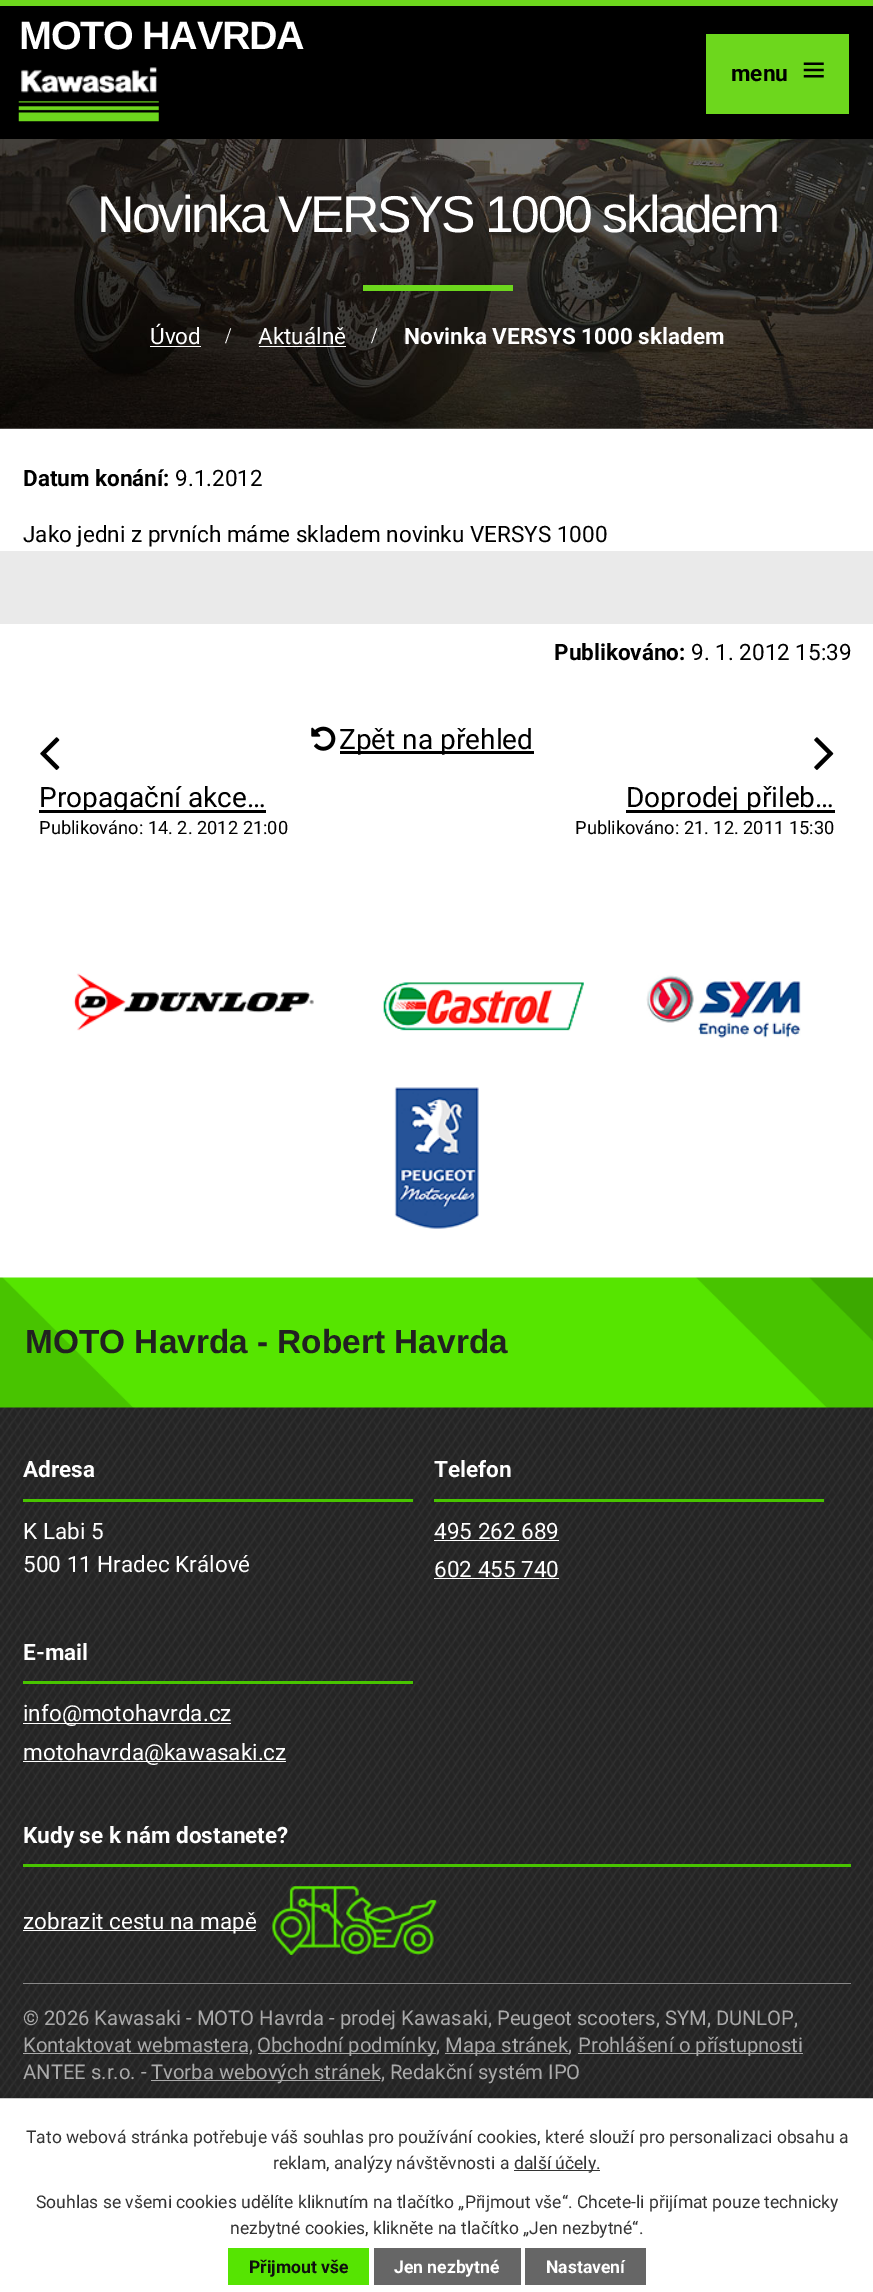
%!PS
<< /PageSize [873 2292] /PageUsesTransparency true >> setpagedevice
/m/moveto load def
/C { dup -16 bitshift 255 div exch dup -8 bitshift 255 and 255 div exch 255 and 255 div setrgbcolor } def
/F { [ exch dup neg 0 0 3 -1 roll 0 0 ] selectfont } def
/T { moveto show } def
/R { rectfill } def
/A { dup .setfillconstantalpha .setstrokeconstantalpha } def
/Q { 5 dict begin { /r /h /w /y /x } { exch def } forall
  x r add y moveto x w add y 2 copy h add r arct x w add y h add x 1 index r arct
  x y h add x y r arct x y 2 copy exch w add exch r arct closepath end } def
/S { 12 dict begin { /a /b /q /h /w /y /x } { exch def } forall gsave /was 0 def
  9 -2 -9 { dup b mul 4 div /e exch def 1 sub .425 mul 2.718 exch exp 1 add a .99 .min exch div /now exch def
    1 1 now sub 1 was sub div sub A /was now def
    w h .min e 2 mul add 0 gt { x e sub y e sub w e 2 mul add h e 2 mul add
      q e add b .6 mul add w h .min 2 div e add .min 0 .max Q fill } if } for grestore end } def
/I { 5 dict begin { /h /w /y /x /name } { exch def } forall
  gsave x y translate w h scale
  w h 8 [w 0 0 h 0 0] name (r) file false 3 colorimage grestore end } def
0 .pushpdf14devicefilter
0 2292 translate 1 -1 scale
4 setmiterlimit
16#FFFFFF C
0 0 873 2292 R
16#000000 C
0 6 873 133 R
16#6DD71D C
0 0 873 6 R
(1.rgb) 18 67 141 55 I
/LiberationSans-Bold 39.5 F
16#FFFFFF C
19 49 m -1.25 0 (MOTO HAVRDA) ashow
16#6DD71D C
706 34 143 80 R
/Roboto-Bold 22.5 F
16#000000 C
(menu) 731 81 T
(2.rgb) 803 62 21 16 I
(3.rgb) 0 139 873 290 I
/LiberationSans-Regular 51.75 F
16#FFFFFF C
97 232 m -2.5 0 (Novinka VERSYS 1000 skladem) ashow
16#6DD71D C
363 285 150 6 R
/Roboto-Regular 22.5 F
16#FFFFFF C
(Úvod) 150 344 T
150 346 51 1 R
/LiberationSerif-Regular 22.5 F
(/) 225 343 T
/Roboto-Regular 22.5 F
(Aktuálně) 258 344 T
259 346 87 1 R
/LiberationSerif-Regular 22.5 F
(/) 371 343 T
/Roboto-Bold 22.5 F
(Novinka VERSYS 1000 skladem) 404 344 T
16#000000 C
(Datum konání:) 23 486 T
/Roboto-Regular 22.5 F
(9.1.2012) 175 486 T
(Jako jedni z prvních máme skladem novinku VERSYS 1000) 23 542 T
16#EAEAEA C
0 551 873 73 R
/Roboto-Bold 22.5 F
16#000000 C
(Publikováno:) 554 660 T
/Roboto-Regular 22.5 F
(9. 1. 2012 15:39) 691 660 T
(4.rgb) 311 726 25 25 I
340 751 194 3 R
/Roboto-Regular 28 F
(Zpět na přehled) 339 749 T
(5.rgb) 40 737 20 33 I
39 810 227 3 R
(Propagační akce…) 39 807 T
/Roboto-Regular 18.25 F
(Publikováno: 14. 2. 2012 21:00) 39 834 T
(6.rgb) 814 737 20 33 I
626 810 209 3 R
/Roboto-Regular 28 F
(Doprodej přileb…) 626 807 T
/Roboto-Regular 18.25 F
(Publikováno: 21. 12. 2011 15:30) 575 834 T
(7.rgb) 0 1407 873 691 I
(8.rgb) 73 973 241 58 I
(9.rgb) 383 982 201 49 I
(10.rgb) 646 975 155 63 I
(11.rgb) 394 1087 85 142 I
(12.rgb) 0 1277 873 131 I
/LiberationSans-Bold 33.4 F
16#212121 C
(MOTO Havrda - Robert Havrda) 25 1353 T
16#48C400 C
23 1499 390 3 R
/Roboto-Bold 22.5 F
16#FFFFFF C
(Adresa) 23 1477 T
/Roboto-Regular 22.5 F
(K Labi 5) 23 1539 T
(500 11 Hradec Králové) 23 1572 T
16#48C400 C
434 1499 390 3 R
/Roboto-Bold 22.5 F
16#FFFFFF C
(Telefon) 434 1477 T
/Roboto-Regular 22.5 F
(495 262 689) 434 1539 T
434 1540 125 1 R
(602 455 740) 434 1577 T
434 1578 125 1 R
16#48C400 C
23 1681 390 3 R
/Roboto-Bold 22.5 F
16#FFFFFF C
(E-mail) 23 1660 T
23 1723 208 1 R
/Roboto-Regular 22.5 F
(info@motohavrda.cz) 23 1721 T
23 1761 263 1 R
(motohavrda@kawasaki.cz) 23 1760 T
16#48C400 C
23 1864 828 3 R
/Roboto-Bold 22.5 F
16#FFFFFF C
(Kudy se k nám dostanete?) 23 1843 T
(13.rgb) 272 1886 165 69 I
23 1930 233 1 R
/Roboto-Regular 22.5 F
(zobrazit cestu na mapě) 23 1929 T
16#888888 C
23 1983 828 1 R
/Roboto-Regular 20.25 F
16#AAAAAA C
(© 2026 Kawasaki - MOTO Havrda - prodej Kawasaki, Peugeot scooters, SYM, DUNLOP,) 23 2025 T
23 2053 225 1 R
(Kontaktovat webmastera,) 23 2052 T
258 2053 178 1 R
(Obchodní podmínky,) 257 2052 T
445 2053 124 1 R
(Mapa stránek,) 445 2052 T
578 2053 225 1 R
(Prohlášení o přístupnosti) 578 2052 T
(ANTEE s.r.o. -) 23 2079 T
151 2080 229 1 R
(Tvorba webových stránek, Redakční systém IPO) 151 2079 T
16#000000 C
0 2098 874 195 0 3 .2 S
16#FFFFFF C
0 2099 873 193 R
16#CCCCCC C
0 2098 873 1 R
/Roboto-Regular 17.5 F
16#333333 C
(Tato webová stránka potřebuje váš souhlas pro používání cookies, které slouží pro personalizaci obsahu a) 26 2143 T
(reklam, analýzy návštěvnosti a) 273 2169 T
514 2170 86 1 R
(další účely.) 514 2169 T
(Souhlas se všemi cookies udělíte kliknutím na tlačítko „Přijmout vše“. Chcete-li přijímat pouze technicky) 36 2208 T
(nezbytné cookies, klikněte na tlačítko „Jen nezbytné“.) 230 2234 T
16#56E402 C
228 2248 141 37 R
/Roboto-Bold 17.5 F
16#0F0F0F C
(Přijmout vše) 249 2273 T
16#666666 C
374 2248 147 37 R
16#FFFFFF C
(Jen nezbytné) 394 2273 T
16#666666 C
525 2248 121 37 R
16#FFFFFF C
(Nastavení) 546 2273 T
.poppdf14devicefilter showpage
